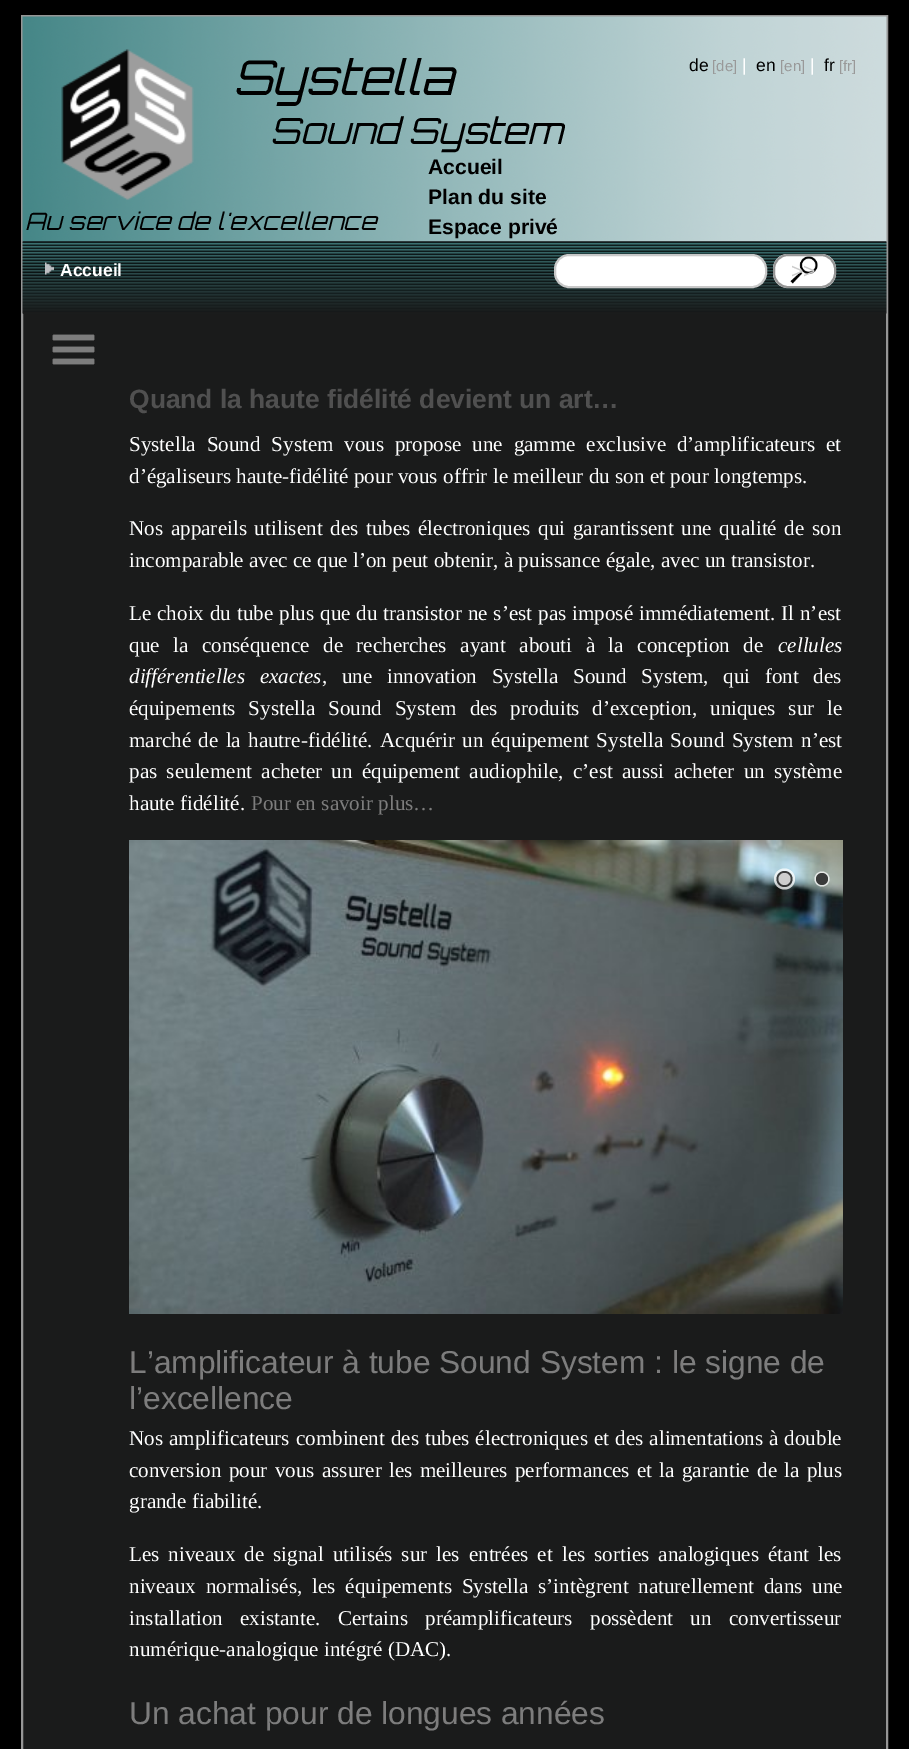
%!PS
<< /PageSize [909 1749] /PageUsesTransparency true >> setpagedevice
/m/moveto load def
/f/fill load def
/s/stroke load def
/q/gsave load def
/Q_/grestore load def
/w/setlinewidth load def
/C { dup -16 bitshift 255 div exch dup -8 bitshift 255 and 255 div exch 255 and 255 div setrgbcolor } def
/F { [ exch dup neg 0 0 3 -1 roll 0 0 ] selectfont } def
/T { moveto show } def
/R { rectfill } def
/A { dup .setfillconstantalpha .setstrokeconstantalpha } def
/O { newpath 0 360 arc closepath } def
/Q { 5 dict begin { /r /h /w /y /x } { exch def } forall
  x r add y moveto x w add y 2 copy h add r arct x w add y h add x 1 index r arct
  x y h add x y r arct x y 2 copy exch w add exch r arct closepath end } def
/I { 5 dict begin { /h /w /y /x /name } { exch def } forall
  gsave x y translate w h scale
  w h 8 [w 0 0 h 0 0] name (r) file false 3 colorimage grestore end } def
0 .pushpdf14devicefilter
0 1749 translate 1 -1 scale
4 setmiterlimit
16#000000 C
0 0 909 1749 R
16#1A1B1B C
23 241 863 1508 R
16#969696 C
2 w
22 16 865 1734 rectstroke
(1.rgb) 22 16 865 226 I
(2.rgb) 61 49 133 151 I
/Orbitron-Italic 48 F
16#000000 C
(Systella) 233 95 T
/Orbitron-Italic 24 F
(Au service de l'excellence) 25 230 T
/Orbitron-Italic 36 F
(Sound System) 270 144 T
/LiberationSans-Regular 17.5 F
(de) 689 71 T
/LiberationSans-Regular 15 F
16#999999 C
([de]) 712 71 T
/LiberationSans-Regular 17.5 F
16#FFFFFF C
(|) 742 71 T
16#000000 C
(en) 756 71 T
/LiberationSans-Regular 15 F
16#999999 C
([en]) 780 71 T
/LiberationSans-Regular 17.5 F
16#FFFFFF C
(|) 810 71 T
16#000000 C
(fr) 824 71 T
/LiberationSans-Regular 15 F
16#999999 C
([fr]) 839 71 T
/LiberationSans-Bold 21.1 F
16#000000 C
(Accueil) 428 174 T
(Plan du site) 428 204 T
(Espace privé) 428 234 T
(3.rgb) 22 241 865 73 I
(4.rgb) 45 262 9 13 I
/LiberationSans-Bold 17.5 F
16#FFFFFF C
(Accueil) 60 276 T
555 255 211 32 14 Q q f Q_
16#C8C8C8 C
s
16#FFFFFF C
773 254 63 34 15 Q f
(5.rgb) 790 256 28 28 I
16#969696 C
774 255 61 32 14 Q s
/LiberationSans-Regular 21.1 F
16#CBCBCB C
(>>) 791 278 T
(6.rgb) 52 334 43 31 I
(7.rgb) 52 334 43 31 I
/LiberationSans-Bold 26.4 F
16#505050 C
(Quand la haute fidélité devient un art…) 129 408 T
/LiberationSerif-Regular 21.1 F
16#FFFFFF C
129 451 m 5.5 0 32 (Systella Sound System vous propose une gamme exclusive d’amplificateurs et) widthshow
(d’égaliseurs haute-fidélité pour vous offrir le meilleur du son et pour longtemps.) 129 483 T
129 535 m 2.4 0 32 (Nos appareils utilisent des tubes électroniques qui garantissent une qualité de son) widthshow
(incomparable avec ce que l’on peut obtenir, à puissance égale, avec un transistor.) 129 567 T
129 620 m .6 0 32 (Le choix du tube plus que du transistor ne s’est pas imposé immédiatement. Il n’est) widthshow
129 652 m 8.25 0 32 (que la conséquence de recherches ayant abouti à la conception de) widthshow
/LiberationSerif-Italic 21.1 F
(cellules) 778 652 T
129 683 m 9.25 0 32 (différentielles exactes) widthshow
/LiberationSerif-Regular 21.1 F
322 683 m 9.25 0 32 (, une innovation Systella Sound System, qui font des) widthshow
129 715 m 7.5 0 32 (équipements Systella Sound System des produits d’exception, uniques sur le) widthshow
129 747 m 2 0 32 (marché de la hautre-fidélité. Acquérir un équipement Systella Sound System n’est) widthshow
129 778 m 4 0 32 (pas seulement acheter un équipement audiophile, c’est aussi acheter un système) widthshow
(haute fidélité.) 129 810 T
16#7D7D7D C
(Pour en savoir plus…) 251 810 T
(8.rgb) 129 840 714 474 I
0.75 A
16#FFFFFF C
784.5 879 10.5 O f
16#000000 C
784.5 879 8 O f
16#FFFFFF C
784.5 879 6 O f
822 879 7.5 O f
16#000000 C
822 879 6 O f
/LiberationSans-Regular 31.7 F
1 A
16#7D7D7D C
(L’amplificateur à tube Sound System : le signe de) 129 1373 T
(l’excellence) 129 1409 T
/LiberationSerif-Regular 21.1 F
16#FFFFFF C
129 1445 m .75 0 32 (Nos amplificateurs combinent des tubes électroniques et des alimentations à double) widthshow
129 1477 m 2 0 32 (conversion pour vous assurer les meilleures performances et la garantie de la plus) widthshow
(grande fiabilité.) 129 1508 T
129 1561 m 3.75 0 32 (Les niveaux de signal utilisés sur les entrées et les sorties analogiques étant les) widthshow
129 1593 m 4.5 0 32 (niveaux normalisés, les équipements Systella s’intègrent naturellement dans une) widthshow
129 1625 m 12 0 32 (installation existante. Certains préamplificateurs possèdent un convertisseur) widthshow
(numérique-analogique intégré \(DAC\).) 129 1656 T
/LiberationSans-Regular 31.7 F
16#7D7D7D C
(Un achat pour de longues années) 129 1724 T
.poppdf14devicefilter showpage
